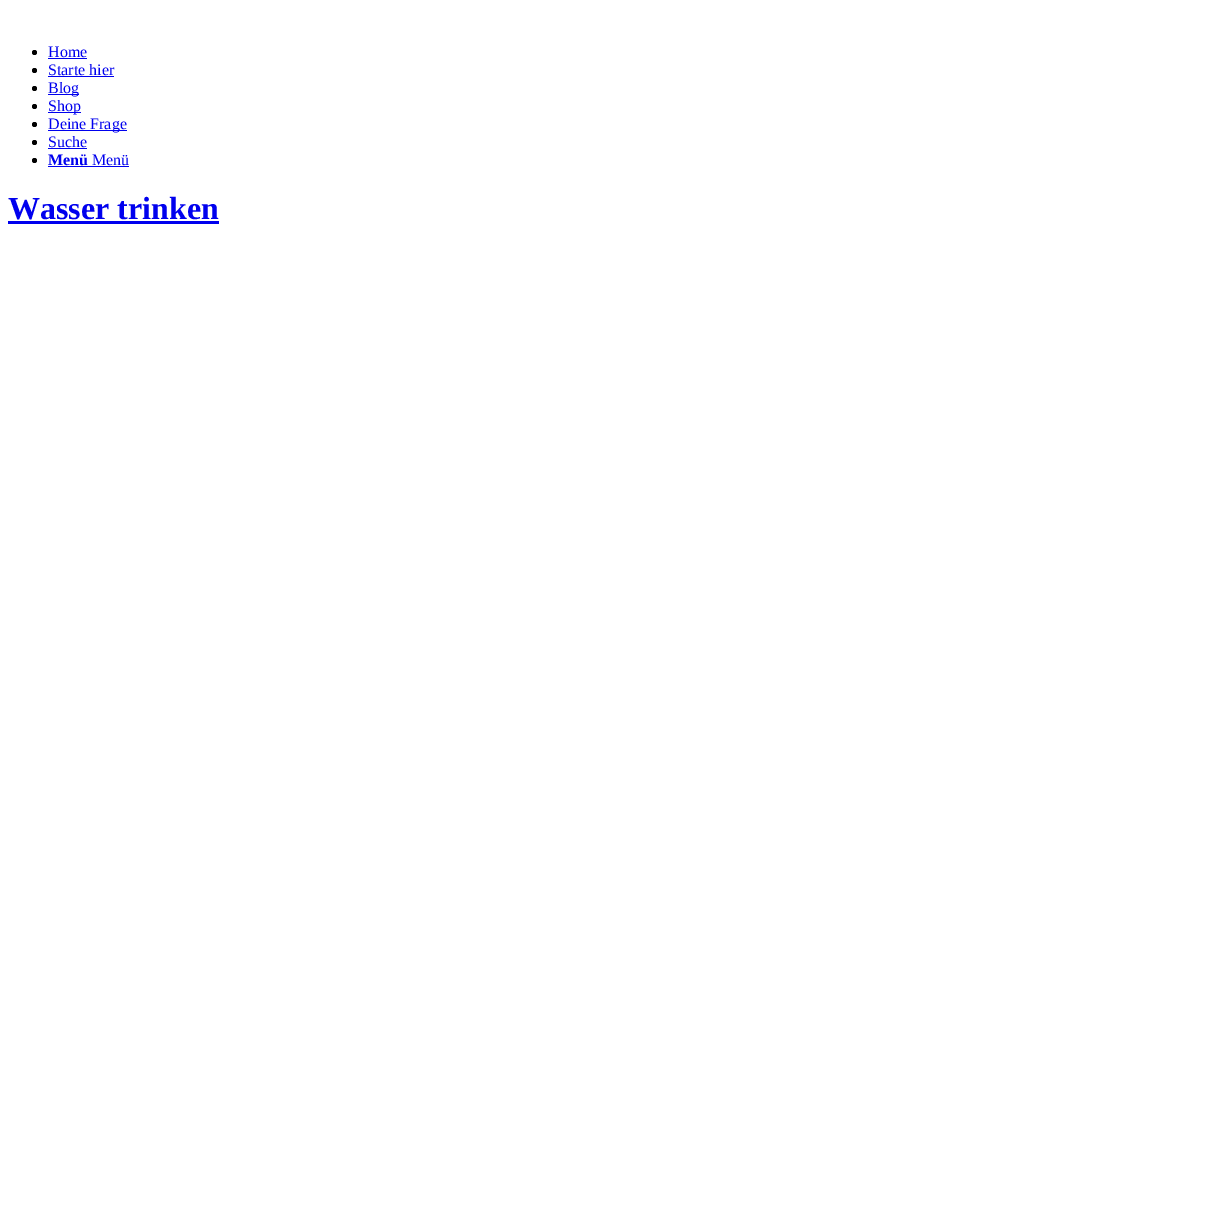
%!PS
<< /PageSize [1229 1232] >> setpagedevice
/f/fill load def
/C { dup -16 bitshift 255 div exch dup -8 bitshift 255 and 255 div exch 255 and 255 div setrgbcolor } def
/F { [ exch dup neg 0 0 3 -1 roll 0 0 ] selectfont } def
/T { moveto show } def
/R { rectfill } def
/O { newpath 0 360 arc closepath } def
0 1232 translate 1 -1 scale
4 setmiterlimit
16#FFFFFF C
0 0 1229 1232 R
16#000000 C
34.5 52.5 2.5 O f
/LiberationSerif-Regular 16 F
16#0000EE C
(Home) 48 57 T
48 58 39 1 R
16#000000 C
34.5 70.5 2.5 O f
16#0000EE C
(Starte hier) 48 75 T
48 76 66 1 R
16#000000 C
34.5 88.5 2.5 O f
16#0000EE C
48 94 31 1 R
(Blog) 48 93 T
16#000000 C
34.5 106.5 2.5 O f
16#0000EE C
48 112 33 1 R
(Shop) 48 111 T
16#000000 C
34.5 124.5 2.5 O f
16#0000EE C
48 130 79 1 R
(Deine Frage) 48 129 T
16#000000 C
34.5 142.5 2.5 O f
16#0000EE C
(Suche) 48 147 T
48 148 39 1 R
16#000000 C
34.5 160.5 2.5 O f
/LiberationSerif-Bold 16 F
16#0000EE C
(Menü) 48 165 T
48 166 81 1 R
/LiberationSerif-Regular 16 F
(Menü) 92 165 T
/LiberationSerif-Bold 32 F
(Wasser trinken) 8 219 T
8 221 211 3 R
showpage
